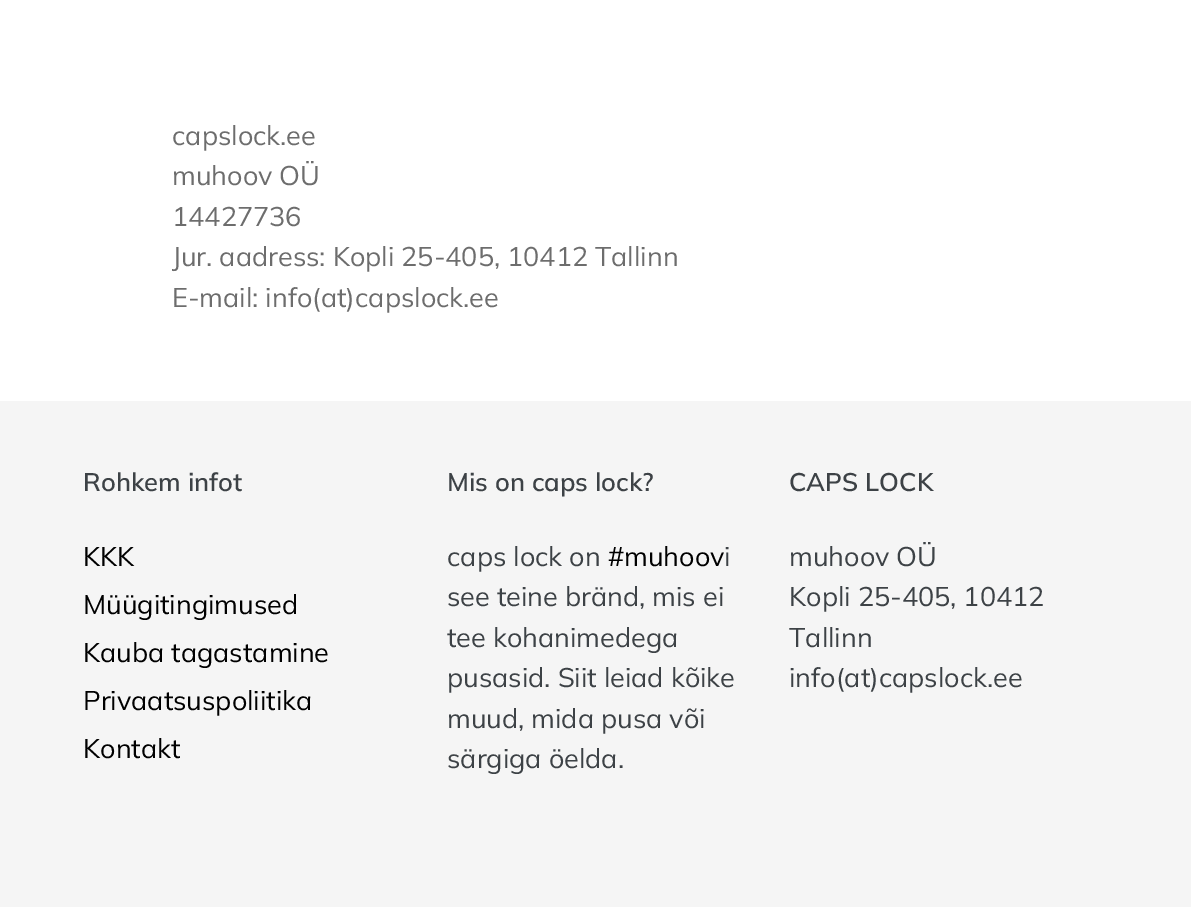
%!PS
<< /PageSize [1191 907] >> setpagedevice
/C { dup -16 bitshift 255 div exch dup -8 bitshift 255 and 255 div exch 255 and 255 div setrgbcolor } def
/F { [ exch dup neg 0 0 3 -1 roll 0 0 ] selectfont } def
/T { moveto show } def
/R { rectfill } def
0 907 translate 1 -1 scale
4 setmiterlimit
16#FFFFFF C
0 0 1191 907 R
/Muli-Regular 27 F
16#6D6D6D C
(capslock.ee) 172 145 T
(muhoov OÜ) 172 185 T
(14427736) 172 226 T
(Jur. aadress: Kopli 25-405, 10412 Tallinn) 172 266 T
(E-mail: info\(at\)capslock.ee) 172 307 T
16#F5F5F5 C
0 401 1191 506 R
/Muli-SemiBold 25.5 F
16#3D4246 C
(Rohkem infot) 83 491 T
/Muli-Regular 27 F
16#000000 C
(KKK) 83 566 T
(Müügitingimused) 83 614 T
(Kauba tagastamine) 83 662 T
(Privaatsuspoliitika) 83 710 T
(Kontakt) 83 758 T
/Muli-SemiBold 25.5 F
16#3D4246 C
(Mis on caps lock?) 447 491 T
/Muli-Regular 27 F
(caps lock on) 447 566 T
16#000000 C
(#muhoov) 608 566 T
16#3D4246 C
(i) 724 566 T
(see teine bränd, mis ei) 447 606 T
(tee kohanimedega) 447 647 T
(pusasid. Siit leiad kõike) 447 687 T
(muud, mida pusa või) 447 728 T
(särgiga öelda.) 447 768 T
/Muli-SemiBold 25.5 F
(CAPS LOCK) 789 491 T
/Muli-Regular 27 F
(muhoov OÜ) 789 566 T
(Kopli 25-405, 10412) 789 606 T
(Tallinn) 789 647 T
(info\(at\)capslock.ee) 789 687 T
showpage
